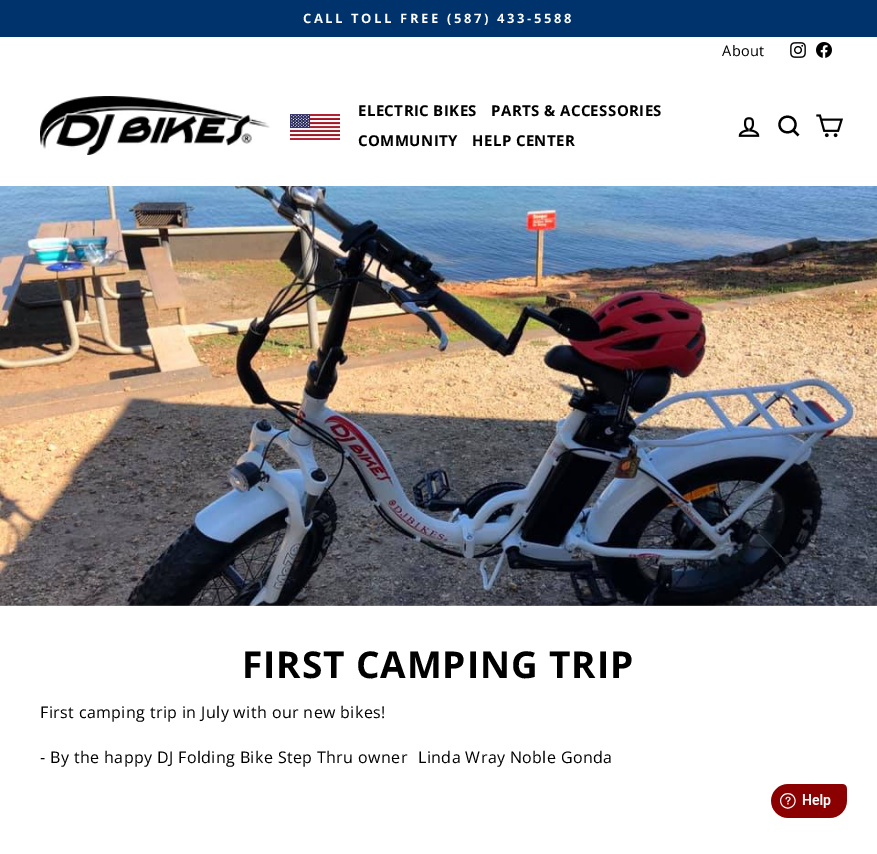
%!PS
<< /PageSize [877 854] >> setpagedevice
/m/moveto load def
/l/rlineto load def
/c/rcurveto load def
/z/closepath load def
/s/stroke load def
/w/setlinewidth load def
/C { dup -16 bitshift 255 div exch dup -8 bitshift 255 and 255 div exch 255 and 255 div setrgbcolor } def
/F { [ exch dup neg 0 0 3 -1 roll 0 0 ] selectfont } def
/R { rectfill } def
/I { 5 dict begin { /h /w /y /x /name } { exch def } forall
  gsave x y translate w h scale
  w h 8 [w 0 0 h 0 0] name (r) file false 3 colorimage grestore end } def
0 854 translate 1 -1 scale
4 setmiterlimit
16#FFFFFF C
0 0 877 854 R
16#00326B C
0 0 877 37 R
/OpenSans-Bold 13 F
16#FFFFFF C
303 23 m 2.6 0 (CALL TOLL FREE \(587\) 433-5588) ashow
/OpenSans-Regular 14.5 F
16#000000 C
722 56 m .4 0 (About) ashow
(1.rgb) 790 42 16 16 I
(2.rgb) 816 42 16 16 I
(3.rgb) 40 96 230 59 I
(4.rgb) 290 114 50 26 I
/OpenSans-Bold 15 F
358 116 m .4 0 (ELECTRIC BIKES) ashow
491 116 m .4 0 (PARTS & ACCESSORIES) ashow
358 146 m .4 0 (COMMUNITY) ashow
472 146 m .4 0 (HELP CENTER) ashow
(5.rgb) 738 117 22 20 I
2.2 w
795.5 124.5 m 0 10.5 -16 10.5 -16 0 c 0 -10.5 16 -10.5 16 0 c z 798.5 135.5 m -5 -5 l s
(6.rgb) 816 114 27 24 I
(7.rgb) 0 186 877 420 I
/OpenSans-Bold 37 F
242 678 m .9 0 (FIRST CAMPING TRIP) ashow
/OpenSans-Regular 16 F
40 718 m .4 0 (First camping trip in July with our new bikes!) ashow
40 763 m .4 0 (- By the happy DJ Folding Bike Step Thru owner) ashow
418 763 m .4 0 (Linda Wray Noble Gonda) ashow
(8.rgb) 771 784 76 34 I
showpage
